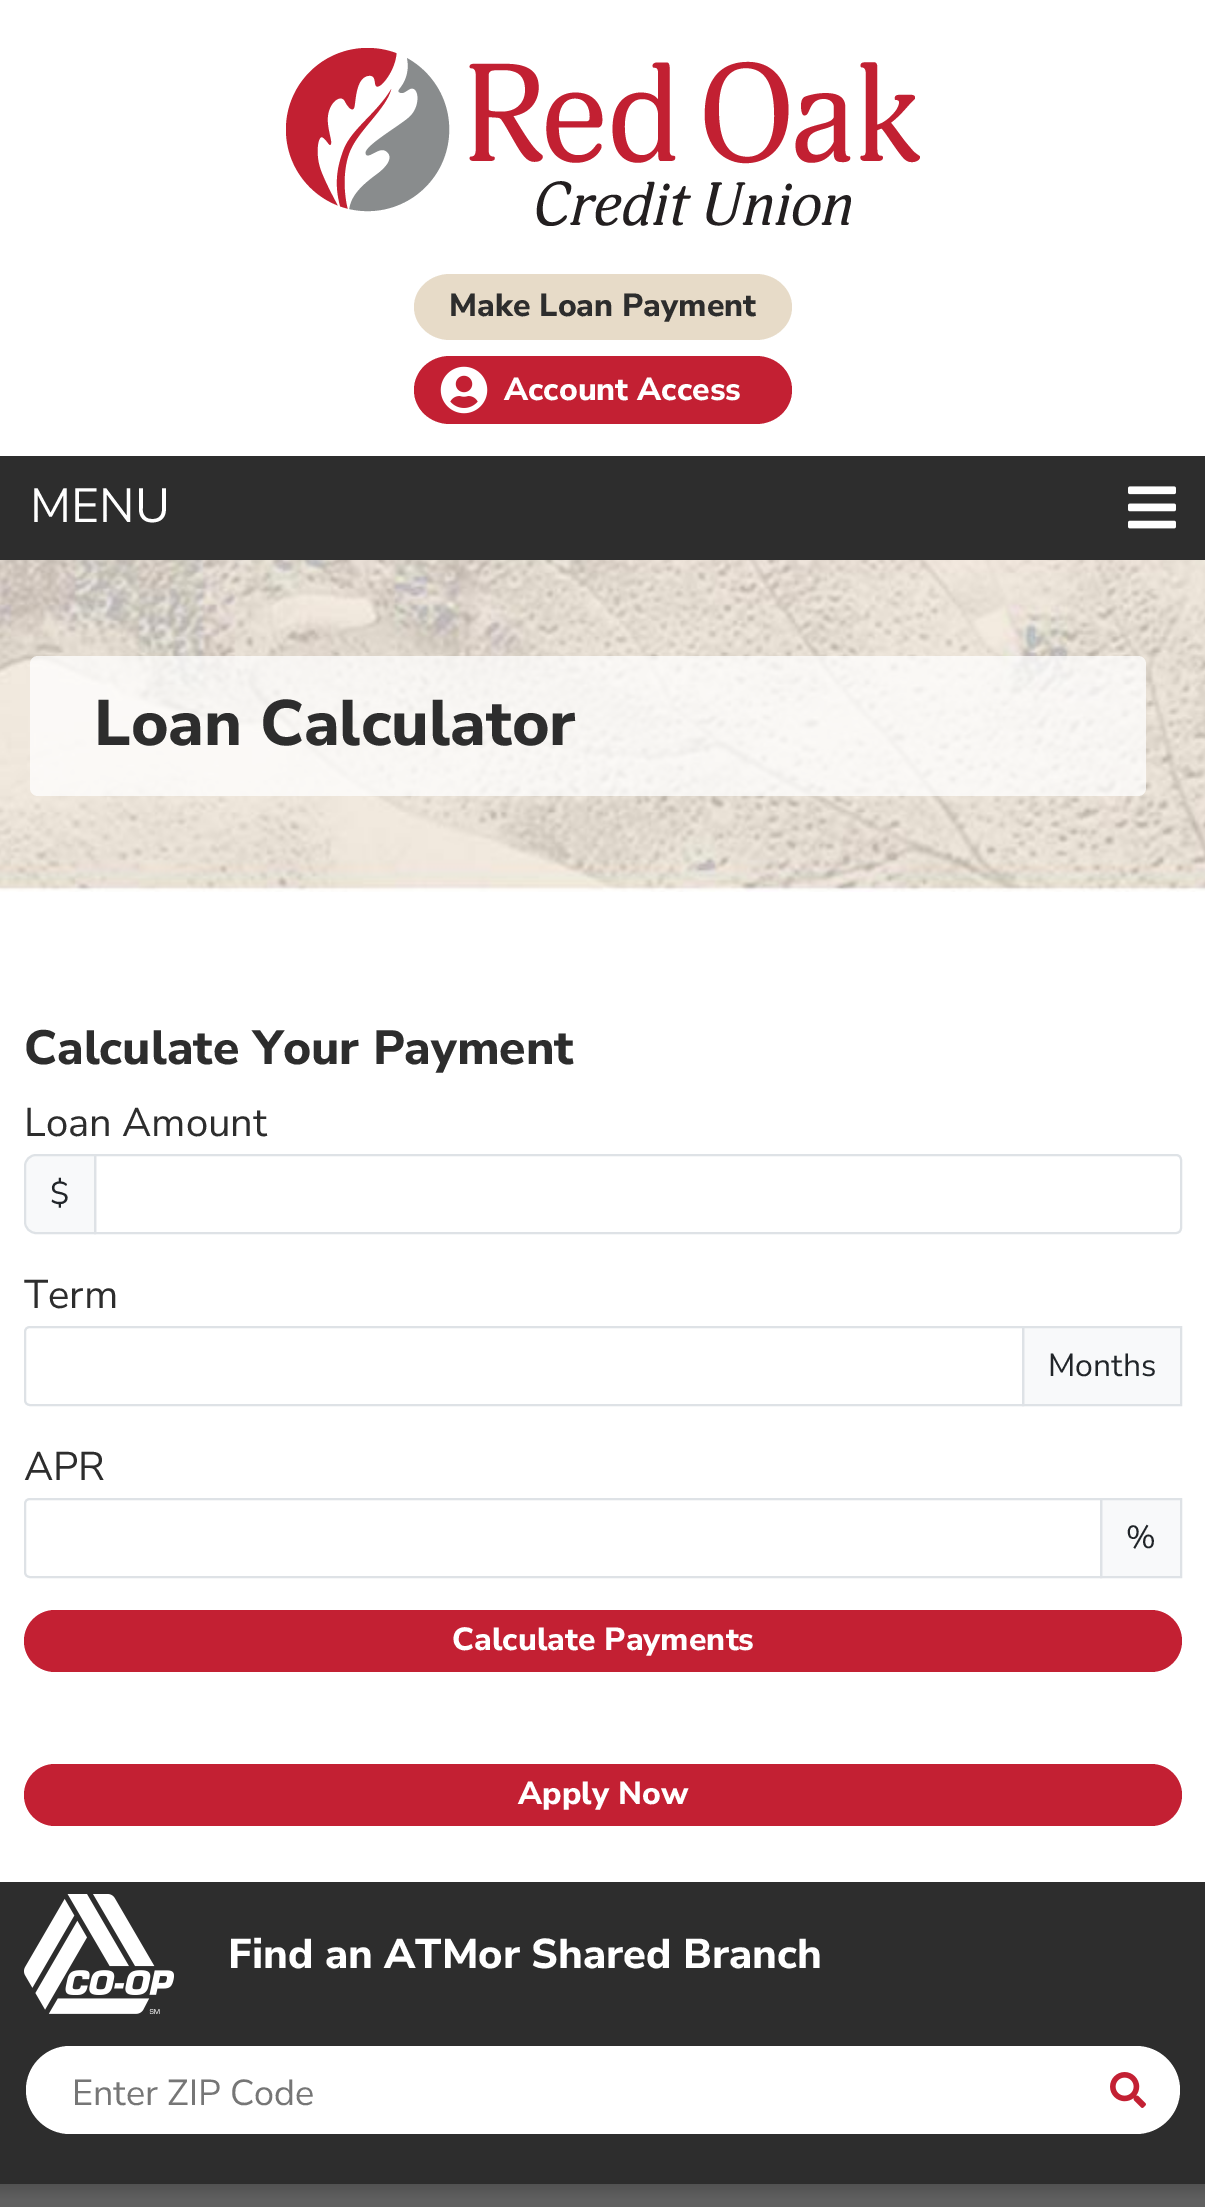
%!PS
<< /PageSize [1205 2207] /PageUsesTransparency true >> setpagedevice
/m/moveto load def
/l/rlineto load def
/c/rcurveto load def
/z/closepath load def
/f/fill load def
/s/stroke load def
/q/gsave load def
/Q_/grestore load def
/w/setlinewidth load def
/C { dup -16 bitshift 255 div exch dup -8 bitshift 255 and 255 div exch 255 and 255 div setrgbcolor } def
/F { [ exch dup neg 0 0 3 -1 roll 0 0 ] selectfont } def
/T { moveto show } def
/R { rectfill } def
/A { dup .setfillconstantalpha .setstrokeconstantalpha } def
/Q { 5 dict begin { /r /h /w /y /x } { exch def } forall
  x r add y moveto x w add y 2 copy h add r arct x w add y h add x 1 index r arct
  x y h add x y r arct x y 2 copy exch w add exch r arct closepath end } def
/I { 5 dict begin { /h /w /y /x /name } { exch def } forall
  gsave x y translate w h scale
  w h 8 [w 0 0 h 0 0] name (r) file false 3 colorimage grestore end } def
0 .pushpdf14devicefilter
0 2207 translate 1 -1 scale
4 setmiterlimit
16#FFFFFF C
0 0 1205 2207 R
(1.rgb) 286 48 634 178 I
16#E7DBC8 C
450 274 m 306 0 l 20 0 36 15 36 33 c 0 18 -16 33 -36 33 c -306 0 l -20 0 -36 -15 -36 -33 c 0 -18 16 -33 36 -33 c z f
/NunitoSans-ExtraBold 32 F
16#2D2D2D C
(Make Loan Payment) 449 316 T
16#C32033 C
450 356 m 306 0 l 20 0 36 15 36 34 c 0 19 -16 34 -36 34 c -306 0 l -20 0 -36 -15 -36 -34 c 0 -19 16 -34 36 -34 c z f
(2.rgb) 440 366 48 48 I
16#FFFFFF C
(Account Access) 504 400 T
16#2D2D2D C
0 456 1205 104 R
/NunitoSans-Regular 48 F
16#FFFFFF C
(MENU) 30 522 T
(3.rgb) 1128 486 48 43 I
(4.rgb) 0 560 1205 332 I
0.75 A
30 656 1116 140 8 Q f
/NunitoSans-ExtraBold 64 F
1 A
16#2D2D2D C
(Loan Calculator) 94 745 T
/NunitoSans-ExtraBold 48 F
(Calculate Your Payment) 24 1064 T
/NunitoSans-Regular 40 F
(Loan Amount) 24 1136 T
16#F8F9FA C
36 1155 m 59 0 l 0 78 l -59 0 l -6 0 -11 -5 -11 -11 c 0 -56 l 0 -6 5 -11 11 -11 c z q f Q_
16#DEE2E6 C
2 w
s
/NunitoSans-Regular 32 F
16#212529 C
($) 50 1204 T
16#DEE2E6 C
95 1155 m 1081 0 l 3 0 5 2 5 5 c 0 68 l 0 3 -2 5 -5 5 c -1081 0 l z s
/NunitoSans-Regular 40 F
16#2D2D2D C
(Term) 24 1308 T
16#F8F9FA C
1023 1327 m 158 0 l 0 78 l -158 0 l z q f Q_
16#DEE2E6 C
s
30 1327 m 993 0 l 0 78 l -993 0 l -3 0 -5 -2 -5 -5 c 0 -68 l 0 -3 2 -5 5 -5 c z s
/NunitoSans-Regular 32 F
16#212529 C
(Months) 1048 1376 T
/NunitoSans-Regular 40 F
16#2D2D2D C
(APR) 24 1480 T
16#F8F9FA C
1101 1499 m 80 0 l 0 78 l -80 0 l z q f Q_
16#DEE2E6 C
s
30 1499 m 1071 0 l 0 78 l -1071 0 l -3 0 -5 -2 -5 -5 c 0 -68 l 0 -3 2 -5 5 -5 c z s
/NunitoSans-Regular 32 F
16#212529 C
(%) 1126 1548 T
16#C32033 C
24 1610 1158 62 31 Q f
/NunitoSans-ExtraBold 32 F
16#FFFFFF C
(Calculate Payments) 452 1650 T
16#C32033 C
24 1764 1158 62 31 Q f
16#FFFFFF C
(Apply Now) 518 1804 T
16#2D2D2D C
0 1882 1205 302 R
(5.rgb) 24 1894 150 120 I
/NunitoSans-ExtraBold 41.6 F
16#FFFFFF C
(Find an ATMor Shared Branch) 228 1968 T
26 2046 1154 88 44 Q f
/NunitoSans-Regular 36 F
16#767676 C
(Enter ZIP Code) 72 2105 T
(6.rgb) 1110 2072 36 36 I
16#606060 C
0 2200 1205 7 R
q 0 2184 m 1205 0 l 0 16 l -1205 0 l z clip newpath
<< /ShadingType 2 /ColorSpace /DeviceRGB /Coords [603 2200 603 2184] /Extend [true true] /Function << /FunctionType 2 /Domain [0 1] /C0 [.376 .376 .376] /C1 [.322 .322 .322] /N 1 >> >> shfill Q_
.poppdf14devicefilter showpage
